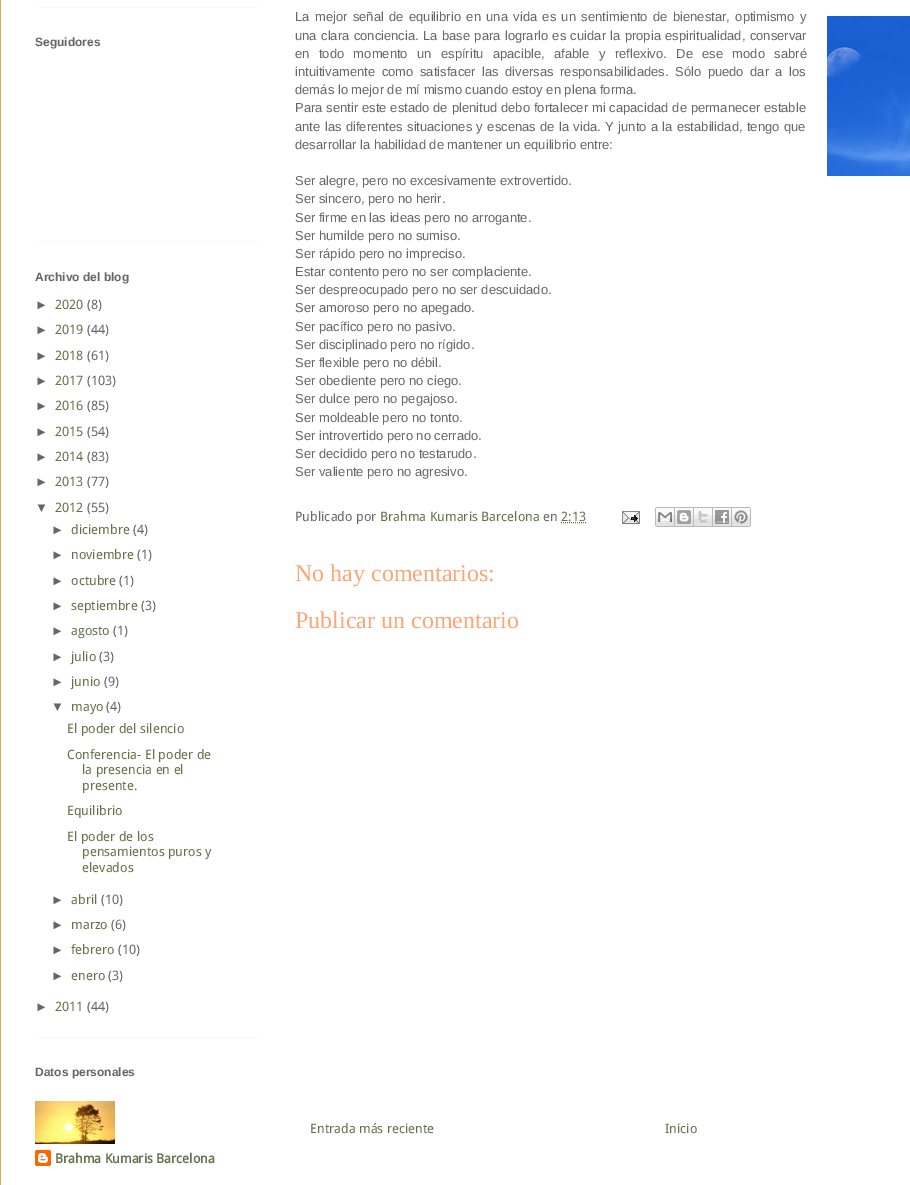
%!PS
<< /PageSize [910 1185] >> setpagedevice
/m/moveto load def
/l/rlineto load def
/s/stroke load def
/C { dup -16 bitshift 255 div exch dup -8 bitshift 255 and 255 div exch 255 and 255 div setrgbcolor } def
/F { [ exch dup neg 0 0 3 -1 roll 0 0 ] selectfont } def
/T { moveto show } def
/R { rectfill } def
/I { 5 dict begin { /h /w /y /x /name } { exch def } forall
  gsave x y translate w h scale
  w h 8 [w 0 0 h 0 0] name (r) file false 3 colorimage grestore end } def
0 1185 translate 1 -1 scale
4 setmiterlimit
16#FFFFFF C
0 0 910 1185 R
16#D8AF4C C
0 0 1 1185 R
16#F9F9F9 C
35 7 225 1 R
35 241 225 1 R
/LiberationSans-Bold 12 F
16#666666 C
(Seguidores) 35 46 T
16#F9F9F9 C
35 1037 225 1 R
16#666666 C
(Archivo del blog) 35 281 T
/LiberationSans-Regular 13 F
(►) 35 309 T
/DroidSans-Regular 13 F
16#627349 C
(2020) 55 309 T
16#666666 C
(\(8\)) 87 309 T
/LiberationSans-Regular 13 F
(►) 35 334 T
/DroidSans-Regular 13 F
16#627349 C
(2019) 55 334 T
16#666666 C
(\(44\)) 87 334 T
/LiberationSans-Regular 13 F
(►) 35 360 T
/DroidSans-Regular 13 F
16#627349 C
(2018) 55 360 T
16#666666 C
(\(61\)) 87 360 T
/LiberationSans-Regular 13 F
(►) 35 385 T
/DroidSans-Regular 13 F
16#627349 C
(2017) 55 385 T
16#666666 C
(\(103\)) 87 385 T
/LiberationSans-Regular 13 F
(►) 35 410 T
/DroidSans-Regular 13 F
16#627349 C
(2016) 55 410 T
16#666666 C
(\(85\)) 87 410 T
/LiberationSans-Regular 13 F
(►) 35 436 T
/DroidSans-Regular 13 F
16#627349 C
(2015) 55 436 T
16#666666 C
(\(54\)) 87 436 T
/LiberationSans-Regular 13 F
(►) 35 461 T
/DroidSans-Regular 13 F
16#627349 C
(2014) 55 461 T
16#666666 C
(\(83\)) 87 461 T
/LiberationSans-Regular 13 F
(►) 35 486 T
/DroidSans-Regular 13 F
16#627349 C
(2013) 55 486 T
16#666666 C
(\(77\)) 87 486 T
/LiberationSans-Regular 13 F
(▼) 35 512 T
/DroidSans-Regular 13 F
16#627349 C
(2012) 55 512 T
16#666666 C
(\(55\)) 87 512 T
/LiberationSans-Regular 13 F
(►) 51 534 T
/DroidSans-Regular 13 F
16#627349 C
(diciembre) 71 534 T
16#666666 C
(\(4\)) 133 534 T
/LiberationSans-Regular 13 F
(►) 51 559 T
/DroidSans-Regular 13 F
16#627349 C
(noviembre) 71 559 T
16#666666 C
(\(1\)) 137 559 T
/LiberationSans-Regular 13 F
(►) 51 585 T
/DroidSans-Regular 13 F
16#627349 C
(octubre) 71 585 T
16#666666 C
(\(1\)) 119 585 T
/LiberationSans-Regular 13 F
(►) 51 610 T
/DroidSans-Regular 13 F
16#627349 C
(septiembre) 71 610 T
16#666666 C
(\(3\)) 141 610 T
/LiberationSans-Regular 13 F
(►) 51 635 T
/DroidSans-Regular 13 F
16#627349 C
(agosto) 71 635 T
16#666666 C
(\(1\)) 113 635 T
/LiberationSans-Regular 13 F
(►) 51 661 T
/DroidSans-Regular 13 F
16#627349 C
(julio) 71 661 T
16#666666 C
(\(3\)) 99 661 T
/LiberationSans-Regular 13 F
(►) 51 686 T
/DroidSans-Regular 13 F
16#627349 C
(junio) 71 686 T
16#666666 C
(\(9\)) 104 686 T
/LiberationSans-Regular 13 F
(▼) 51 711 T
/DroidSans-Regular 13 F
16#627349 C
(mayo) 71 711 T
16#666666 C
(\(4\)) 106 711 T
16#627349 C
(El poder del silencio) 67 733 T
(Conferencia- El poder de) 67 759 T
(la presencia en el) 82 774 T
(presente.) 82 790 T
(Equilibrio) 67 815 T
(El poder de los) 67 841 T
(pensamientos puros y) 82 856 T
(elevados) 82 872 T
/LiberationSans-Regular 13 F
16#666666 C
(►) 51 904 T
/DroidSans-Regular 13 F
16#627349 C
(abril) 71 904 T
16#666666 C
(\(10\)) 101 904 T
/LiberationSans-Regular 13 F
(►) 51 929 T
/DroidSans-Regular 13 F
16#627349 C
(marzo) 71 929 T
16#666666 C
(\(6\)) 111 929 T
/LiberationSans-Regular 13 F
(►) 51 954 T
/DroidSans-Regular 13 F
16#627349 C
(febrero) 71 954 T
16#666666 C
(\(10\)) 118 954 T
/LiberationSans-Regular 13 F
(►) 51 980 T
/DroidSans-Regular 13 F
16#627349 C
(enero) 71 980 T
16#666666 C
(\(3\)) 108 980 T
/LiberationSans-Regular 13 F
(►) 35 1011 T
/DroidSans-Regular 13 F
16#627349 C
(2011) 55 1011 T
16#666666 C
(\(44\)) 87 1011 T
/LiberationSans-Bold 12 F
(Datos personales) 35 1076 T
(1.rgb) 35 1101 80 43 I
(2.rgb) 35 1150 16 16 I
/DroidSans-Bold 13 F
16#627349 C
(Brahma Kumaris Barcelona) 55 1163 T
/LiberationSans-Regular 13 F
16#666666 C
295 21 m 1.75 0 32 (La mejor señal de equilibrio en una vida es un sentimiento de bienestar, optimismo y) widthshow
(3.rgb) 827 16 83 160 I
295 40 m .75 0 32 (una clara conciencia. La base para lograrlo es cuidar la propia espiritualidad, conservar) widthshow
295 58 m 5.75 0 32 (en todo momento un espíritu apacible, afable y reflexivo. De ese modo sabré) widthshow
295 76 m 2.9 0 32 (intuitivamente como satisfacer las diversas responsabilidades. Sólo puedo dar a los) widthshow
(demás lo mejor de mí mismo cuando estoy en plena forma.) 295 94 T
295 112 m .25 0 32 (Para sentir este estado de plenitud debo fortalecer mi capacidad de permanecer estable) widthshow
295 131 m .75 0 32 (ante las diferentes situaciones y escenas de la vida. Y junto a la estabilidad, tengo que) widthshow
(desarrollar la habilidad de mantener un equilibrio entre:) 295 149 T
(Ser alegre, pero no excesivamente extrovertido.) 295 185 T
(Ser sincero, pero no herir.) 295 203 T
(Ser firme en las ideas pero no arrogante.) 295 222 T
(Ser humilde pero no sumiso.) 295 240 T
(Ser rápido pero no impreciso.) 295 258 T
(Estar contento pero no ser complaciente.) 295 276 T
(Ser despreocupado pero no ser descuidado.) 295 294 T
(Ser amoroso pero no apegado.) 295 312 T
(Ser pacífico pero no pasivo.) 295 331 T
(Ser disciplinado pero no rígido.) 295 349 T
(Ser flexible pero no débil.) 295 367 T
(Ser obediente pero no ciego.) 295 385 T
(Ser dulce pero no pegajoso.) 295 403 T
(Ser moldeable pero no tonto.) 295 422 T
(Ser introvertido pero no cerrado.) 295 440 T
(Ser decidido pero no testarudo.) 295 458 T
(Ser valiente pero no agresivo.) 295 476 T
/DroidSans-Regular 13 F
(Publicado por) 295 521 T
16#627349 C
(Brahma Kumaris Barcelona) 380 521 T
16#666666 C
(en) 543 521 T
16#627349 C
(2:13) 561 521 T
[1 1] 0 setdash
561 522.5 m 25 0 l s
(4.rgb) 622 511 18 13 I
(5.rgb) 655 507 20 20 I
(6.rgb) 675 507 19 20 I
(7.rgb) 694 507 19 20 I
(8.rgb) 713 507 19 20 I
(9.rgb) 732 507 19 20 I
/LiberationSerif-Regular 24 F
16#FFA575 C
(No hay comentarios:) 295 581 T
(Publicar un comentario) 295 628 T
/DroidSans-Regular 13 F
16#627349 C
(Entrada más reciente) 310 1133 T
(Inicio) 665 1133 T
showpage
